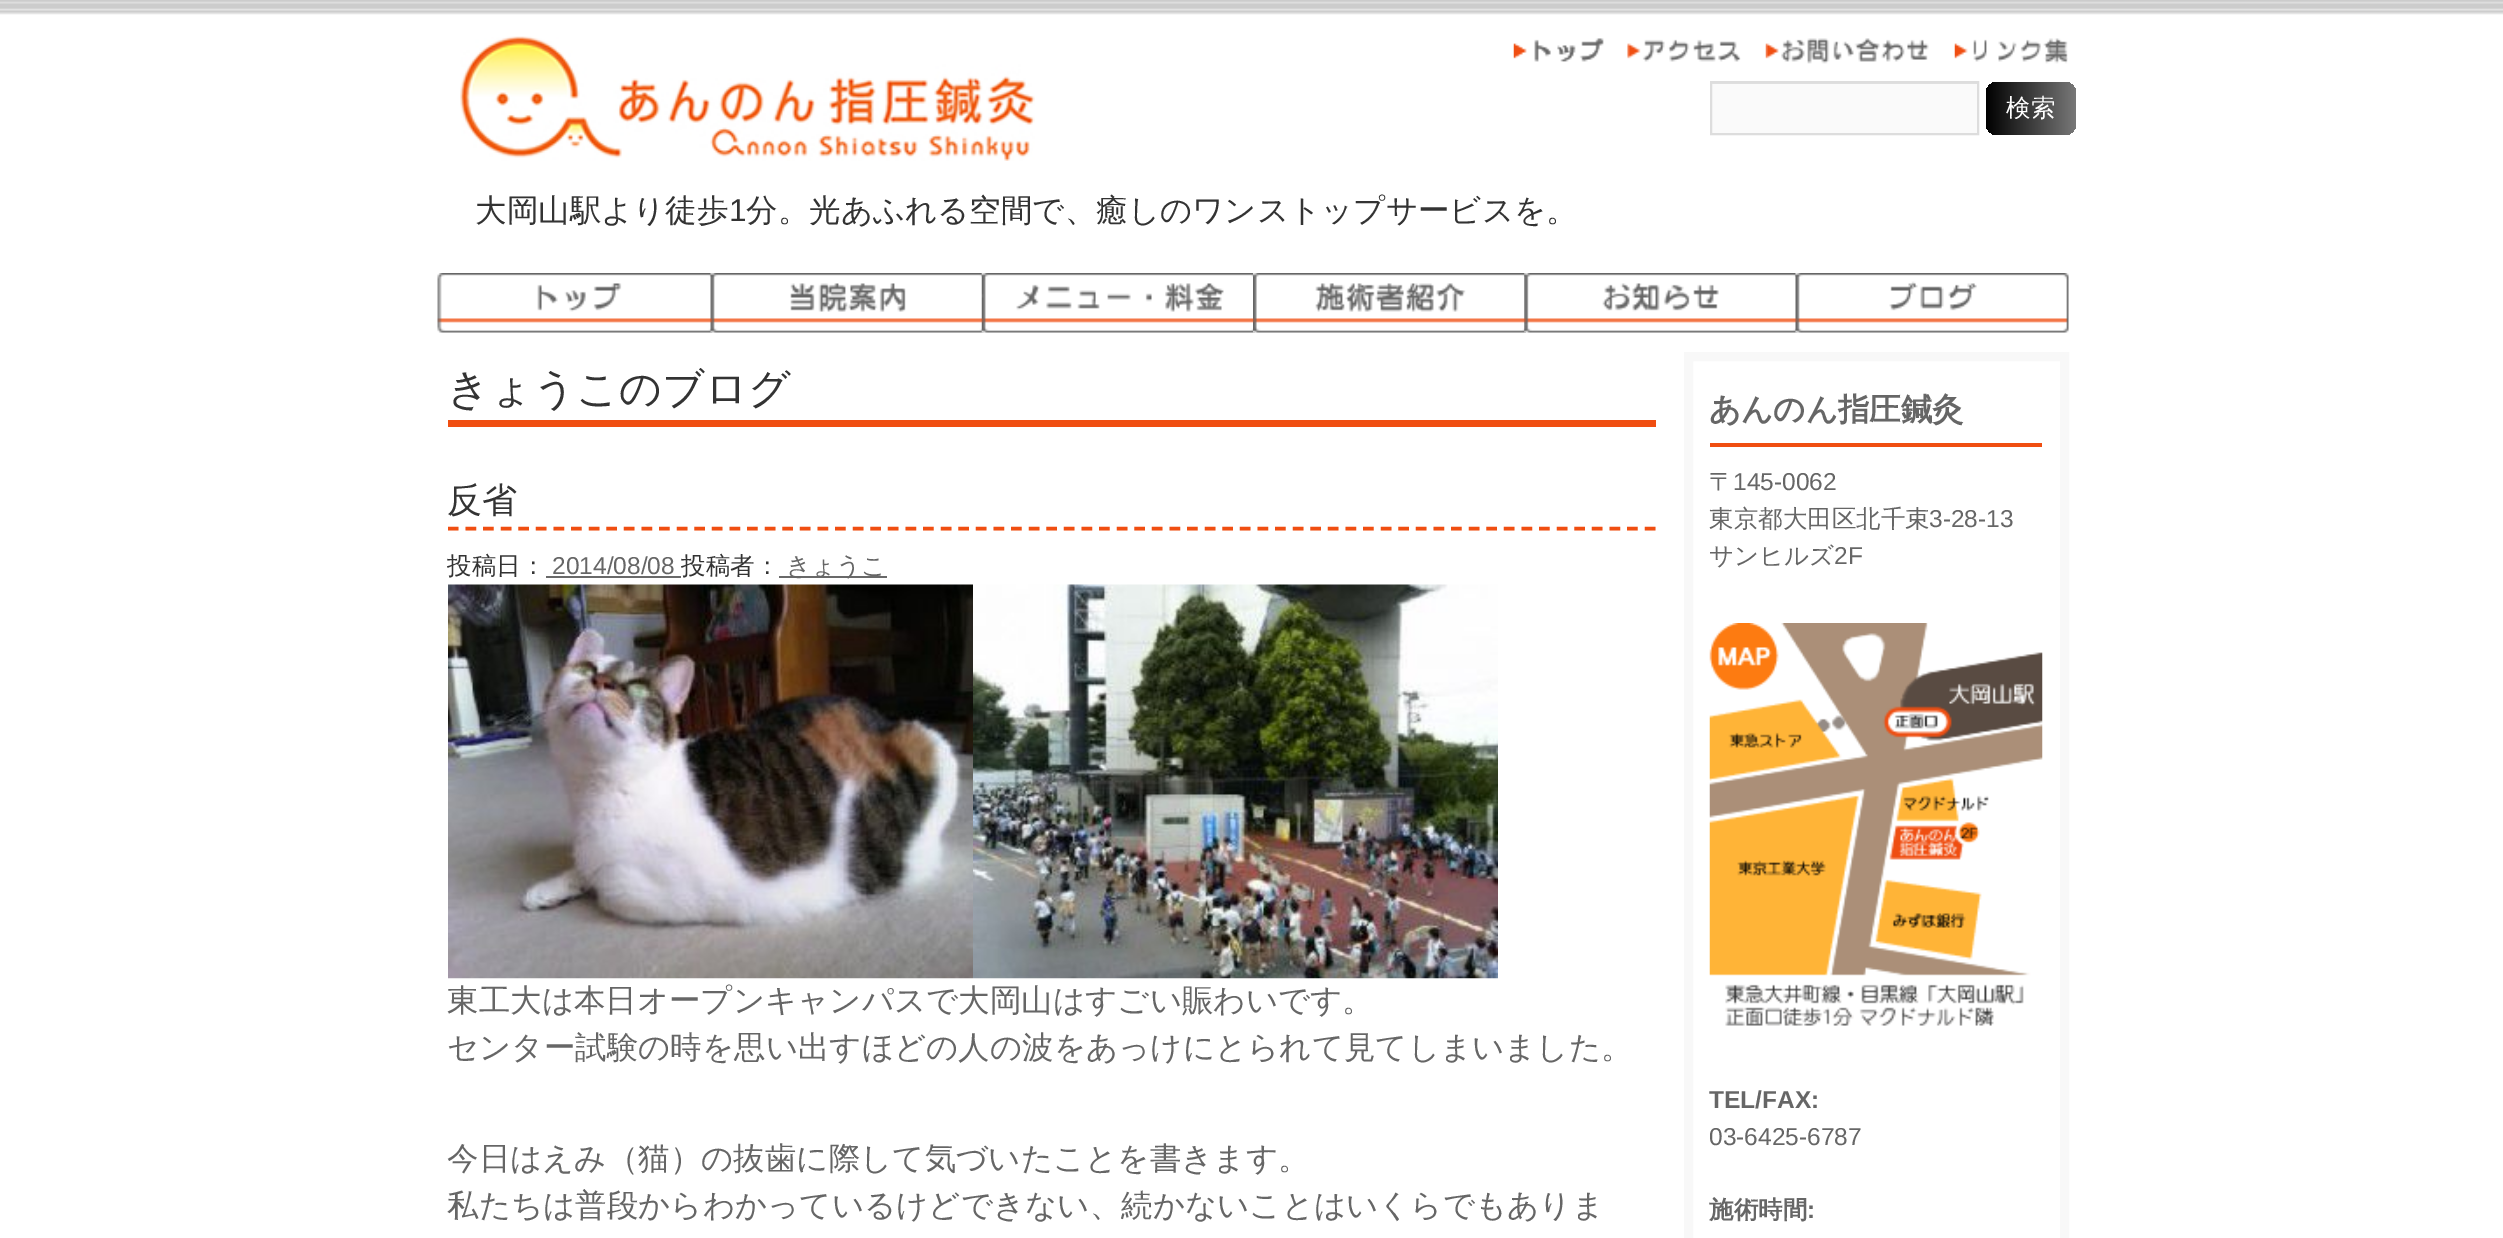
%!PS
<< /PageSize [2503 1238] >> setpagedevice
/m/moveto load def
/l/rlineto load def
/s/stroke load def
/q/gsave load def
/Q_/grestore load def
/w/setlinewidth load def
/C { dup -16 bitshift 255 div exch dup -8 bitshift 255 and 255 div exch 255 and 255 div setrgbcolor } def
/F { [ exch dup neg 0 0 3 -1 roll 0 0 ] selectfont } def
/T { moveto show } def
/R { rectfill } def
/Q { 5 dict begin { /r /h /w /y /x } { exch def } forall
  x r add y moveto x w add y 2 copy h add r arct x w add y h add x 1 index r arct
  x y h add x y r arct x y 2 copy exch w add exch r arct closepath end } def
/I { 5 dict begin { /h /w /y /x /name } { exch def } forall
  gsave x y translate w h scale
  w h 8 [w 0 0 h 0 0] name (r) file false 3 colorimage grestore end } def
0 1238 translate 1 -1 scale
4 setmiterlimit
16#FFFFFF C
0 0 2503 1238 R
(1.rgb) 0 0 2503 15 I
(2.rgb) 1513 38 91 24 I
(3.rgb) 1627 39 114 23 I
(4.rgb) 1765 38 164 26 I
(5.rgb) 1954 38 114 26 I
16#FAFAFA C
1712 84 265 49 R
16#E1E1E1 C
1712 83 266 1 R
16#DDDDDD C
2 w
1711 82 267 52 rectstroke
q 1986 82 90 53 11 Q clip newpath
<< /ShadingType 2 /ColorSpace /DeviceRGB /Coords [2076 109 1986 109] /Extend [true true] /Function << /FunctionType 2 /Domain [0 1] /C0 [.471 .471 .471] /C1 [0 0 0] /N 1 >> >> shfill Q_
/WenQuanYiZenHei-Medium 24.5 F
16#FFFFFF C
(検索) 2006 116 T
(6.rgb) 460 36 575 125 I
/WenQuanYiZenHei-Medium 31.5 F
16#333333 C
(大岡山駅より徒歩) 475 221 T
/LiberationSans-Regular 31.5 F
(1) 729 221 T
/WenQuanYiZenHei-Medium 31.5 F
(分。光あふれる空間で、癒しのワンストップサービスを。) 746 221 T
(7.rgb) 437 273 276 60 I
(8.rgb) 710 273 274 60 I
(9.rgb) 981 273 274 60 I
(10.rgb) 1253 273 273 60 I
(11.rgb) 1524 273 274 60 I
(12.rgb) 1795 273 274 60 I
16#F04E11 C
448 420 1208 7 R
/WenQuanYiZenHei-Medium 42 F
16#333333 C
(きょうこのブログ) 447 403 T
16#F04E11 C
3.5 w
[10.5 7.1] 0 setdash
448 528.5 m 1207.5 0 l s
/WenQuanYiZenHei-Medium 35 F
16#333333 C
(反省) 447 512 T
/WenQuanYiZenHei-Medium 24.5 F
(投稿日：) 447 574 T
/LiberationSans-Regular 24.5 F
16#666666 C
(2014/08/08) 552 574 T
16#696969 C
546 576 135 2 R
/WenQuanYiZenHei-Medium 24.5 F
16#333333 C
(投稿者：) 681 574 T
16#696969 C
779 576 108 2 R
16#666666 C
(きょうこ) 786 574 T
(13.rgb) 448 584 525 395 I
(14.rgb) 973 584 525 395 I
/WenQuanYiZenHei-Medium 31.5 F
(東工大は本日オープンキャンパスで大岡山はすごい賑わいです。) 447 1011 T
(センター試験の時を思い出すほどの人の波をあっけにとられて見てしまいました。) 447 1058 T
(今日はえみ（猫）の抜歯に際して気づいたことを書きます。) 447 1169 T
(私たちは普段からわかっているけどできない、続かないことはいくらでもありま) 447 1216 T
16#F8F8F8 C
9 w
[] 0 setdash
1688.5 356.5 376 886 rectstroke
16#F04E11 C
1710 443 332 4 R
/WenQuanYiZenHei-Bold 31.5 F
16#666666 C
(あんのん指圧鍼灸) 1709 420 T
/WenQuanYiZenHei-Medium 24.5 F
(〒) 1709 490 T
/LiberationSans-Regular 24.5 F
(145-0062) 1733 490 T
/WenQuanYiZenHei-Medium 24.5 F
(東京都大田区北千束) 1709 527 T
/LiberationSans-Regular 24.5 F
(3-28-13) 1929 527 T
/WenQuanYiZenHei-Medium 24.5 F
(サンヒルズ) 1709 564 T
/LiberationSans-Regular 24.5 F
(2F) 1834 564 T
(15.rgb) 1709 623 334 403 I
/LiberationSans-Bold 24.5 F
(TEL/FAX:) 1709 1108 T
/LiberationSans-Regular 24.5 F
(03-6425-6787) 1709 1145 T
/WenQuanYiZenHei-Bold 24.5 F
(施術時間) 1709 1218 T
/LiberationSans-Bold 24.5 F
(:) 1807 1218 T
showpage
